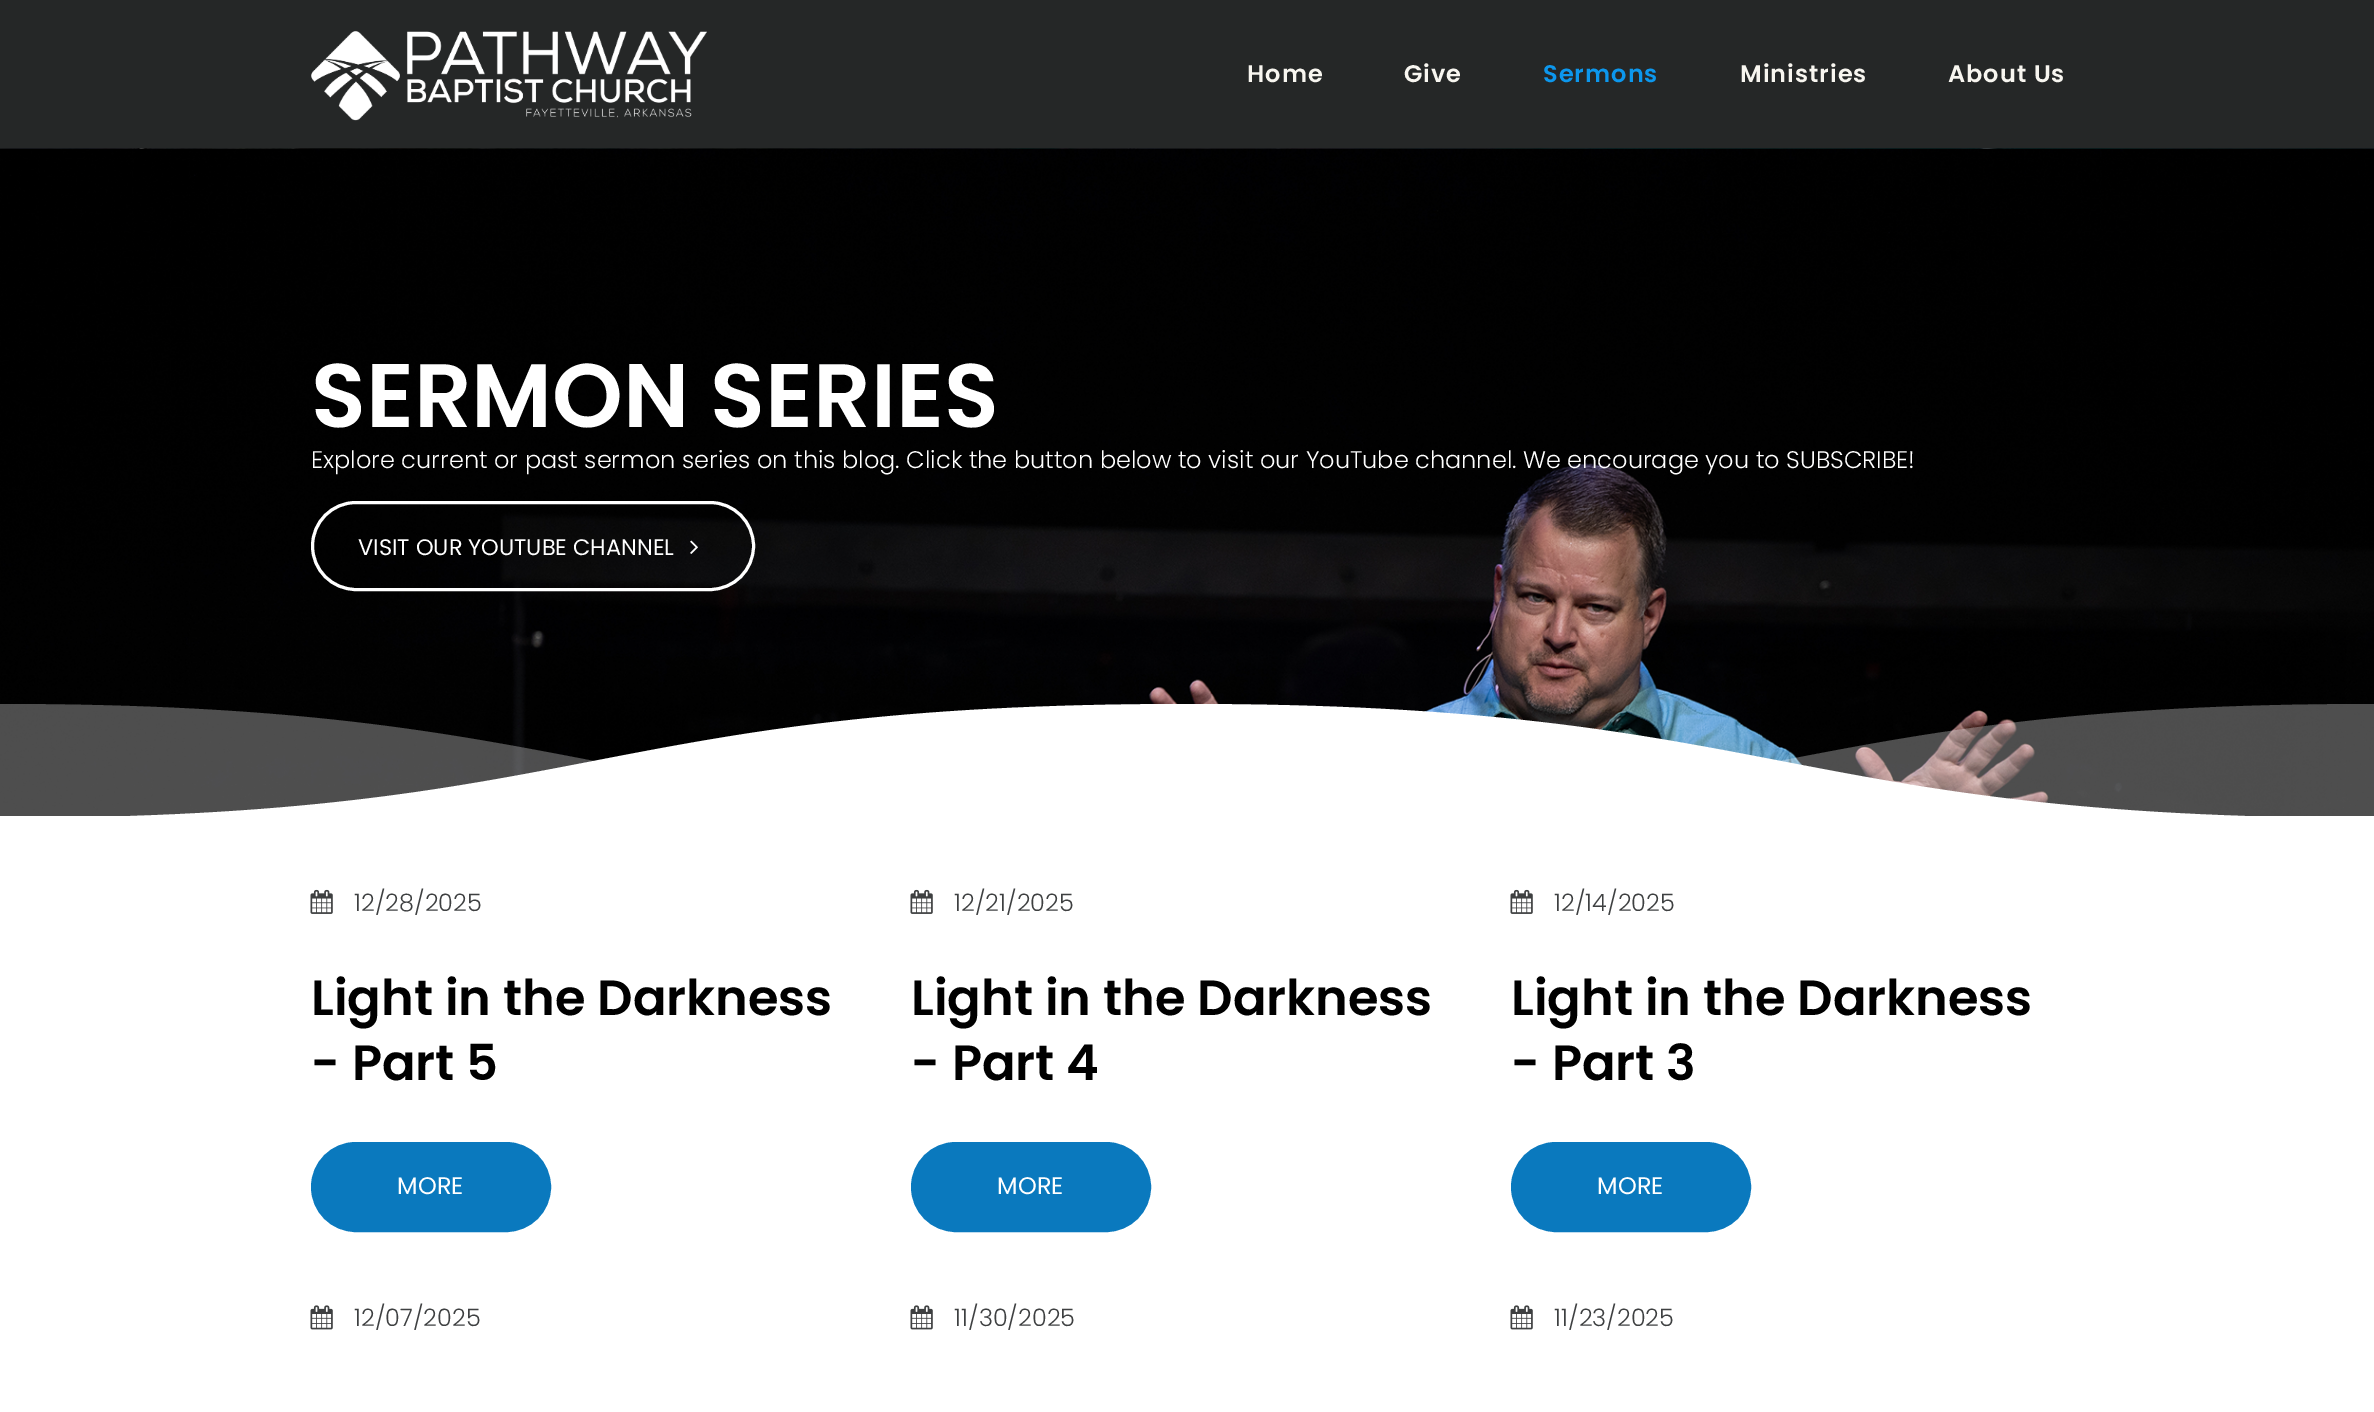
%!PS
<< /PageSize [2374 1412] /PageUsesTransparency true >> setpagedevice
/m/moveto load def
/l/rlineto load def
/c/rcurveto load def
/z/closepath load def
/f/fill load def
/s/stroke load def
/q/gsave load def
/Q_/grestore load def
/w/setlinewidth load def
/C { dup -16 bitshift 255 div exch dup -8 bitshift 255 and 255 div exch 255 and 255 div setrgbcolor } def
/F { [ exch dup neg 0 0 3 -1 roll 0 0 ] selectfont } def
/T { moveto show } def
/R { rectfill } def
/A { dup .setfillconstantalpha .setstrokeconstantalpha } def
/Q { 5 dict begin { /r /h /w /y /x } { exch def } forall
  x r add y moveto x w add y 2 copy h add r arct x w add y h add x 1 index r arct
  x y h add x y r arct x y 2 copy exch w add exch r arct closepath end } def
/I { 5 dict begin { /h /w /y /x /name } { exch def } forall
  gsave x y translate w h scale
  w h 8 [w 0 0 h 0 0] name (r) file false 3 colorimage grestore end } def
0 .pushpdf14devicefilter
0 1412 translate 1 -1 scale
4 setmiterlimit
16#FFFFFF C
0 0 2374 1412 R
16#252727 C
0 0 2374 149 R
(1.rgb) 311 30 396 91 I
/Poppins-SemiBold 24 F
16#F8F6F0 C
1247 82 m 1 0 (Home) ashow
1404 82 m 1 0 (Give) ashow
16#0C97ED C
1543 82 m 1 0 (Sermons) ashow
16#F8F6F0 C
1740 82 m 1 0 (Ministries) ashow
1948 82 m 1 0 (About Us) ashow
(2.rgb) 0 148 2374 1 I
(3.rgb) 0 148 2374 668 I
/Poppins-SemiBold 90 F
16#FFFFFF C
(SERMON SERIES) 311 427 T
/Poppins-Light 24 F
(Explore current or past sermon series on this blog. Click the button below to visit our YouTube channel. We encourage you to SUBSCRIBE!) 311 468 T
3 w
312.5 502.5 441 87 43.5 Q s
/Poppins-Regular 22.5 F
(VISIT OUR YOUTUBE CHANNEL) 358 555 T
(4.rgb) 690 540 8 14 I
0.3 A
0 704 m -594 0 -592 114 -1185 114 c 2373 0 l -594 0 -594 -114 -1188 -114 c z f
2373 704 m -595 0 -592 114 -1186 114 c 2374 0 l -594 0 -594 -114 -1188 -114 c z f
1 A
1186 704 m -594 0 -591 114 -1185 114 c 2373 0 l -593 0 -593 -114 -1188 -114 c z f
(5.rgb) 310 889 23 25 I
/Poppins-Light 24 F
16#3E4041 C
(12/28/2025) 354 911 T
/Poppins-SemiBold 49.5 F
16#000000 C
(Light in the Darkness) 311 1015 T
(- Part 5) 311 1080 T
16#0A79BE C
312.5 1143.5 237 87 43.5 Q q f Q_
s
/Poppins-Regular 24 F
16#FFFFFF C
(MORE) 397 1194 T
(5.rgb) 910 889 23 25 I
/Poppins-Light 24 F
16#3E4041 C
(12/21/2025) 954 911 T
/Poppins-SemiBold 49.5 F
16#000000 C
(Light in the Darkness) 911 1015 T
(- Part 4) 911 1080 T
16#0A79BE C
912.5 1143.5 237 87 43.5 Q q f Q_
s
/Poppins-Regular 24 F
16#FFFFFF C
(MORE) 997 1194 T
(5.rgb) 1510 889 23 25 I
/Poppins-Light 24 F
16#3E4041 C
(12/14/2025) 1554 911 T
/Poppins-SemiBold 49.5 F
16#000000 C
(Light in the Darkness) 1511 1015 T
(- Part 3) 1511 1080 T
16#0A79BE C
1512.5 1143.5 237 87 43.5 Q q f Q_
s
/Poppins-Regular 24 F
16#FFFFFF C
(MORE) 1597 1194 T
(6.rgb) 310 1305 23 25 I
/Poppins-Light 24 F
16#3E4041 C
(12/07/2025) 354 1326 T
(6.rgb) 910 1305 23 25 I
(11/30/2025) 954 1326 T
(6.rgb) 1510 1305 23 25 I
(11/23/2025) 1554 1326 T
.poppdf14devicefilter showpage
